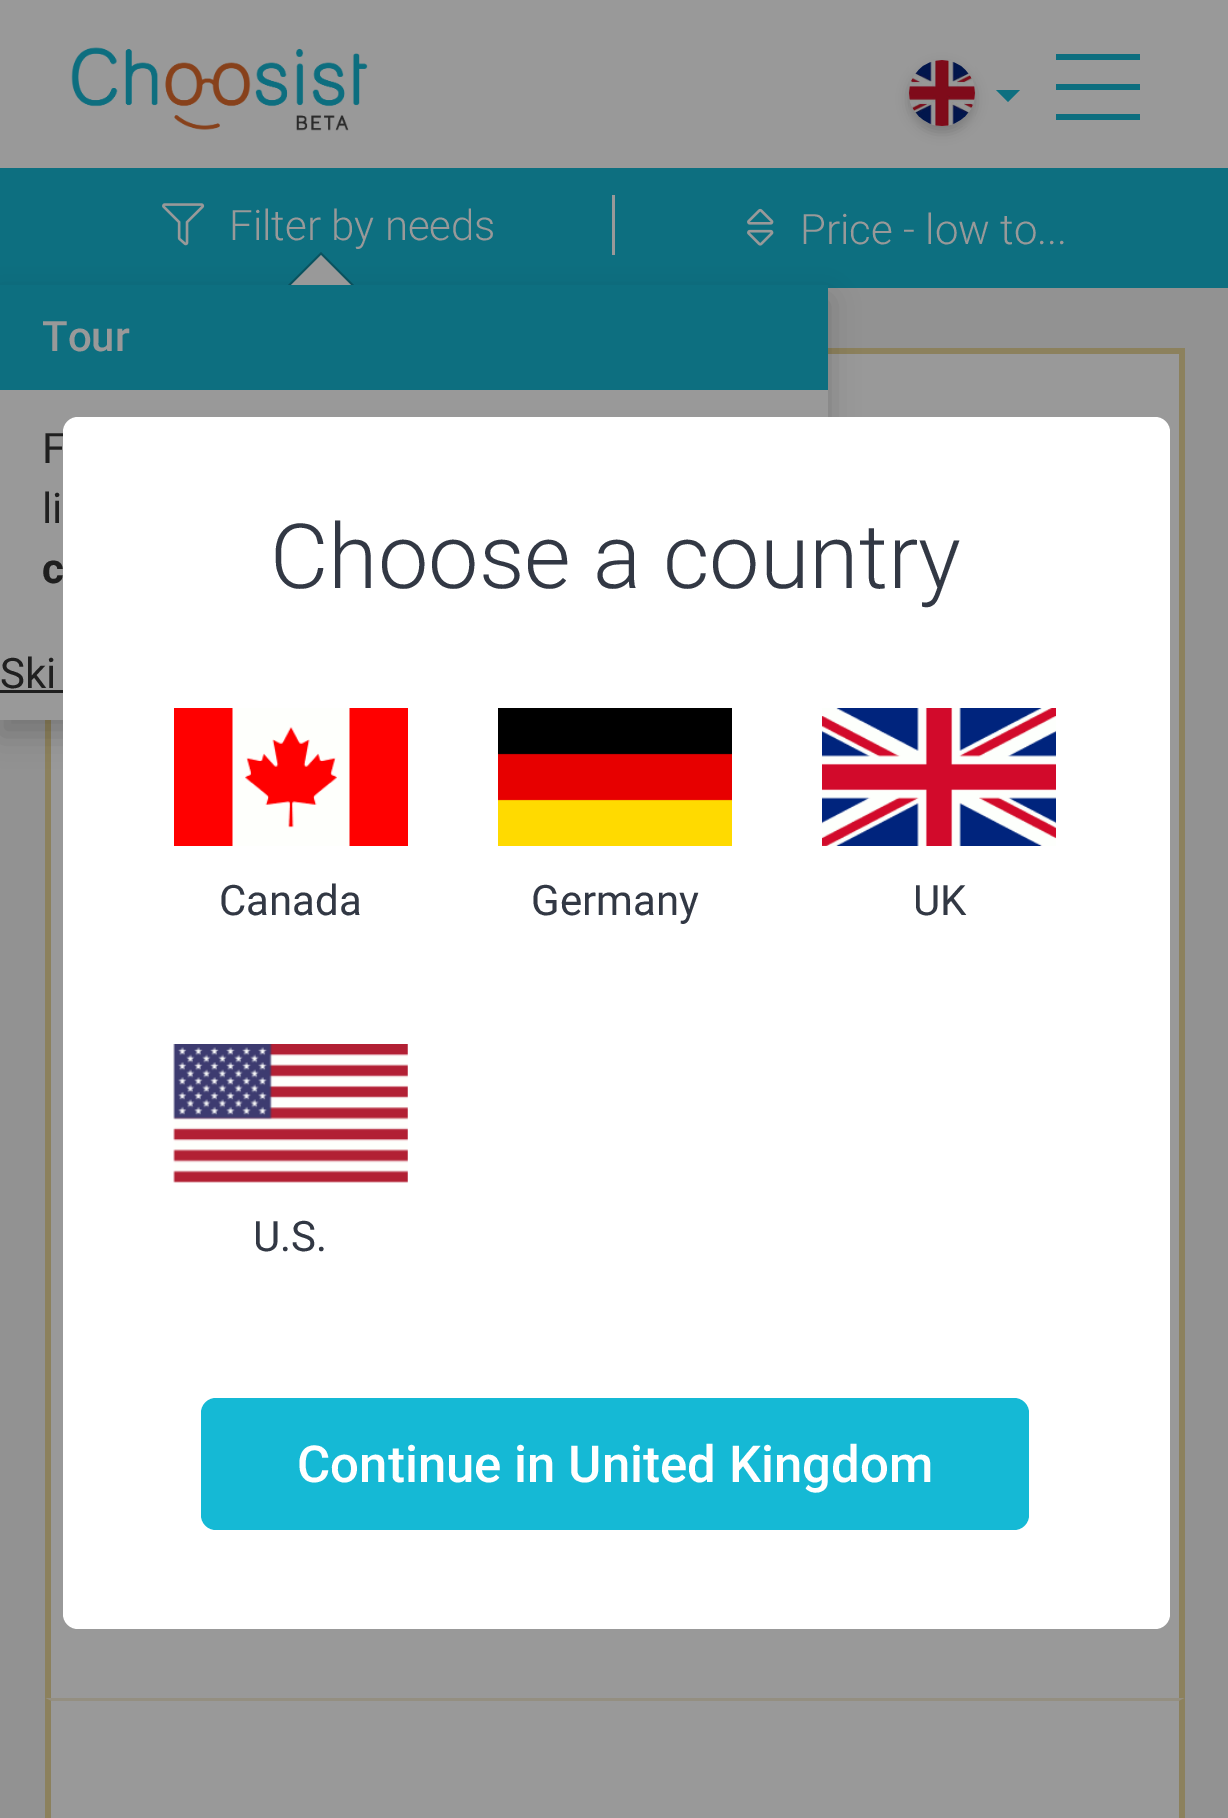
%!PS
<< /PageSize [1228 1818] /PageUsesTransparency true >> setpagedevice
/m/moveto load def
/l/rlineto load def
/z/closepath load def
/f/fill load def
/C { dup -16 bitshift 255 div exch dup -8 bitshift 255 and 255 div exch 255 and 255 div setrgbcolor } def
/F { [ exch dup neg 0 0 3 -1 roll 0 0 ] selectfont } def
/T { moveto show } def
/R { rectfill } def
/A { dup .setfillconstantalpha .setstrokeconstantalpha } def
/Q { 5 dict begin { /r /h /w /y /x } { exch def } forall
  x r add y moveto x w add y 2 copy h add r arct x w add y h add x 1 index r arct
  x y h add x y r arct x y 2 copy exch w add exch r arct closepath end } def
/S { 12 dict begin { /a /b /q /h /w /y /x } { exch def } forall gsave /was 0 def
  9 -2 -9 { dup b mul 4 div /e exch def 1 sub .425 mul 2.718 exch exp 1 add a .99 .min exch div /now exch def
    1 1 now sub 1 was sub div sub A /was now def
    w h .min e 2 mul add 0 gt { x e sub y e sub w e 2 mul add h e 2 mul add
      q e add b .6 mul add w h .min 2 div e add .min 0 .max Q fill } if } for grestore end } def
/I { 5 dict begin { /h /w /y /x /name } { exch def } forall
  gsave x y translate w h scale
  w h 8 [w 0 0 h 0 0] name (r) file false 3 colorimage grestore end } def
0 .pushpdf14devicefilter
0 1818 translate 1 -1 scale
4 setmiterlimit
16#929292 C
0 0 1228 1818 R
16#999999 C
0 0 1228 168 R
(1.rgb) 71 47 297 84 I
16#000000 C
909 66 66 66 33 6 .2 S
(2.rgb) 909 60 66 66 I
16#0D6F80 C
996 90 m 24 0 l -12 12 l z f
16#0D6E7F C
1056 54 84 6 R
1056 84 84 6 R
1056 114 84 6 R
16#0D6F80 C
0 168 1228 120 R
16#999999 C
612 195 3 60 R
(3.rgb) 162 203 43 43 I
/Roboto-Light 42 F
(Filter by needs) 229 240 T
(4.rgb) 747 208 27 38 I
(Price - low to...) 800 244 T
45 348 1140 1470 R
16#8C815D C
45 348 m 1140 0 l -6 6 l -1128 0 l z f
0.5 A
16#7F6921 C
1185 348 m 0 1350 l -6 0 l 0 -1344 l z f
45 1698 m 0 -1350 l 6 6 l 0 1344 l z f
1 A
16#948F81 C
45 1698 m 1140 0 l -6 3 l -1128 0 l z f
0.5 A
16#7F6921 C
1185 1698 m 0 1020 l -6 -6 l 0 -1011 l z f
45 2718 m 0 -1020 l 6 3 l 0 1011 l z f
1 A
16#000000 C
0 300 828 435 0 15 .2 S
16#999999 C
0 390 828 330 R
0.25 A
16#000000 C
354 285 m -66 0 l 33 -33 l z f
1 A
16#999999 C
351 285 m -60 0 l 30 -30 l z f
16#0D6F80 C
0 285 828 105 R
/Roboto-Medium 42 F
16#999999 C
(Tour) 42 351 T
/Roboto-Regular 42 F
16#1F1F1F C
(F) 42 463 T
(li) 42 523 T
/Roboto-Bold 42 F
(c) 42 583 T
/Roboto-Regular 42 F
(Ski) 0 688 T
0 690 63 3 R
16#FFFFFF C
63 417 1107 1212 15 Q f
/Roboto-Light 90 F
16#323844 C
(Choose a country) 270 588 T
(5.rgb) 174 708 234 138 I
/Roboto-Regular 42 F
(Canada) 219 915 T
(6.rgb) 498 708 234 138 I
(Germany) 531 915 T
(7.rgb) 822 708 234 138 I
(UK) 913 915 T
(8.rgb) 173 1044 235 139 I
(U.S.) 253 1251 T
16#15B9D5 C
201 1398 828 132 15 Q f
/Roboto-Medium 51 F
16#FFFFFF C
(Continue in United Kingdom) 297 1482 T
.poppdf14devicefilter showpage
